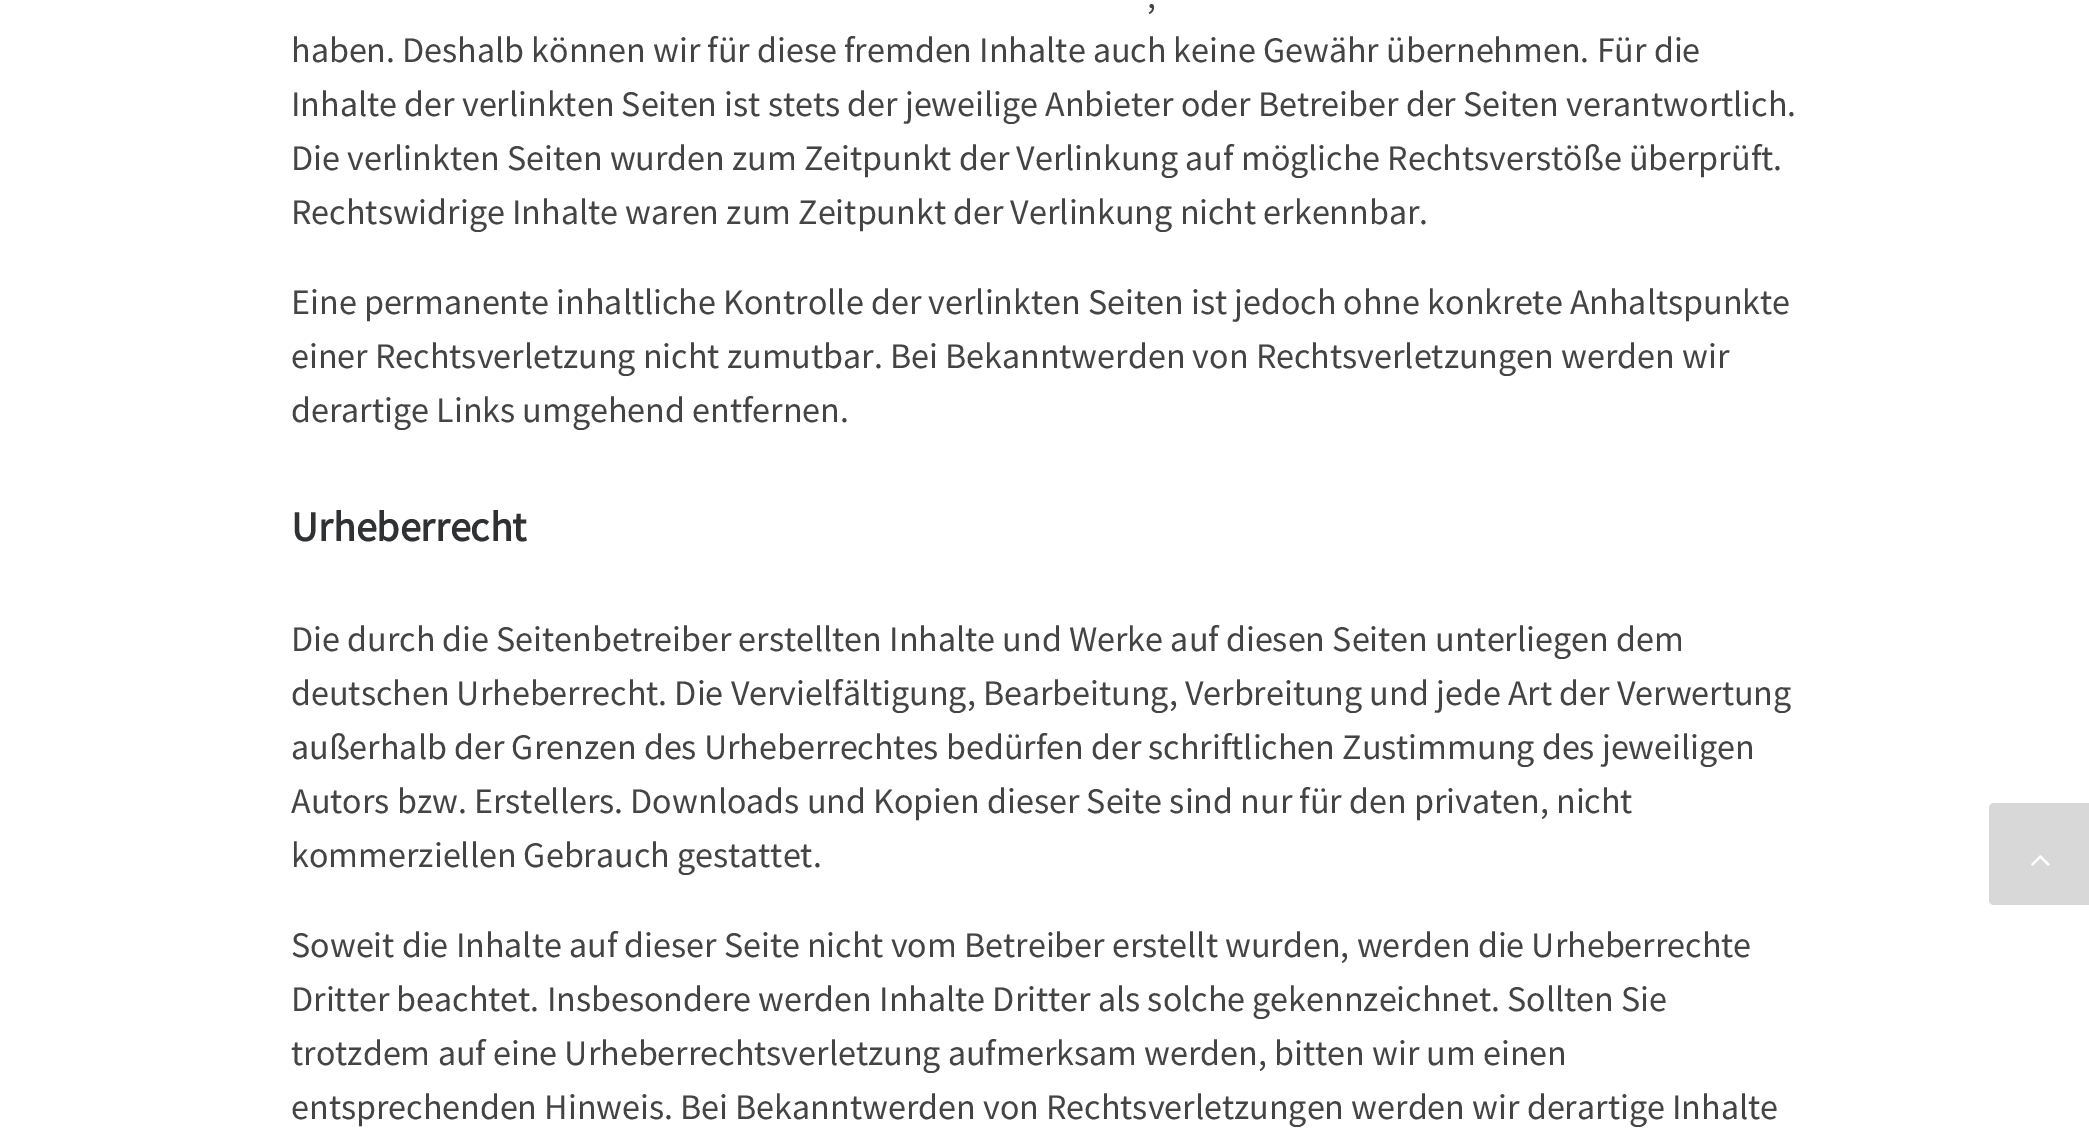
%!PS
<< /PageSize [2089 1128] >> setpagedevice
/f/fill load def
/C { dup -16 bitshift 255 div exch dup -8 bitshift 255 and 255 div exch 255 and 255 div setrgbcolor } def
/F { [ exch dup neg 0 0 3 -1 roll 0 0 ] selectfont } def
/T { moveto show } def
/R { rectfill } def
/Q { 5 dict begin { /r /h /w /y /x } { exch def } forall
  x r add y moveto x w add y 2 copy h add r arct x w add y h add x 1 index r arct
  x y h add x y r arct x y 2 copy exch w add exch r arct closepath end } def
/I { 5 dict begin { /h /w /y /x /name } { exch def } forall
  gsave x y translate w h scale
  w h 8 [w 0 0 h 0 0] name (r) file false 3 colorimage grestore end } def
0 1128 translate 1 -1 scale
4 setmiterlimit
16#FFFFFF C
0 0 2089 1128 R
/SourceSansPro-Regular 36 F
16#444444 C
(,) 1147 8 T
(haben. Deshalb können wir für diese fremden Inhalte auch keine Gewähr übernehmen. Für die) 291 62 T
(Inhalte der verlinkten Seiten ist stets der jeweilige Anbieter oder Betreiber der Seiten verantwortlich.) 291 116 T
(Die verlinkten Seiten wurden zum Zeitpunkt der Verlinkung auf mögliche Rechtsverstöße überprüft.) 291 170 T
(Rechtswidrige Inhalte waren zum Zeitpunkt der Verlinkung nicht erkennbar.) 291 224 T
(Eine permanente inhaltliche Kontrolle der verlinkten Seiten ist jedoch ohne konkrete Anhaltspunkte) 291 314 T
(einer Rechtsverletzung nicht zumutbar. Bei Bekanntwerden von Rechtsverletzungen werden wir) 291 368 T
(derartige Links umgehend entfernen.) 291 422 T
/SourceSansPro-Bold 42 F
16#303133 C
(Urheberrecht) 291 541 T
/SourceSansPro-Regular 36 F
16#444444 C
(Die durch die Seitenbetreiber erstellten Inhalte und Werke auf diesen Seiten unterliegen dem) 291 651 T
(deutschen Urheberrecht. Die Vervielfältigung, Bearbeitung, Verbreitung und jede Art der Verwertung) 291 705 T
(außerhalb der Grenzen des Urheberrechtes bedürfen der schriftlichen Zustimmung des jeweiligen) 291 759 T
(Autors bzw. Erstellers. Downloads und Kopien dieser Seite sind nur für den privaten, nicht) 291 813 T
(kommerziellen Gebrauch gestattet.) 291 867 T
(Soweit die Inhalte auf dieser Seite nicht vom Betreiber erstellt wurden, werden die Urheberrechte) 291 957 T
(Dritter beachtet. Insbesondere werden Inhalte Dritter als solche gekennzeichnet. Sollten Sie) 291 1011 T
(trotzdem auf eine Urheberrechtsverletzung aufmerksam werden, bitten wir um einen) 291 1065 T
(entsprechenden Hinweis. Bei Bekanntwerden von Rechtsverletzungen werden wir derartige Inhalte) 291 1119 T
16#D8D8D8 C
1989 803 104 102 5 Q f
(1.rgb) 2031 855 19 11 I
showpage
